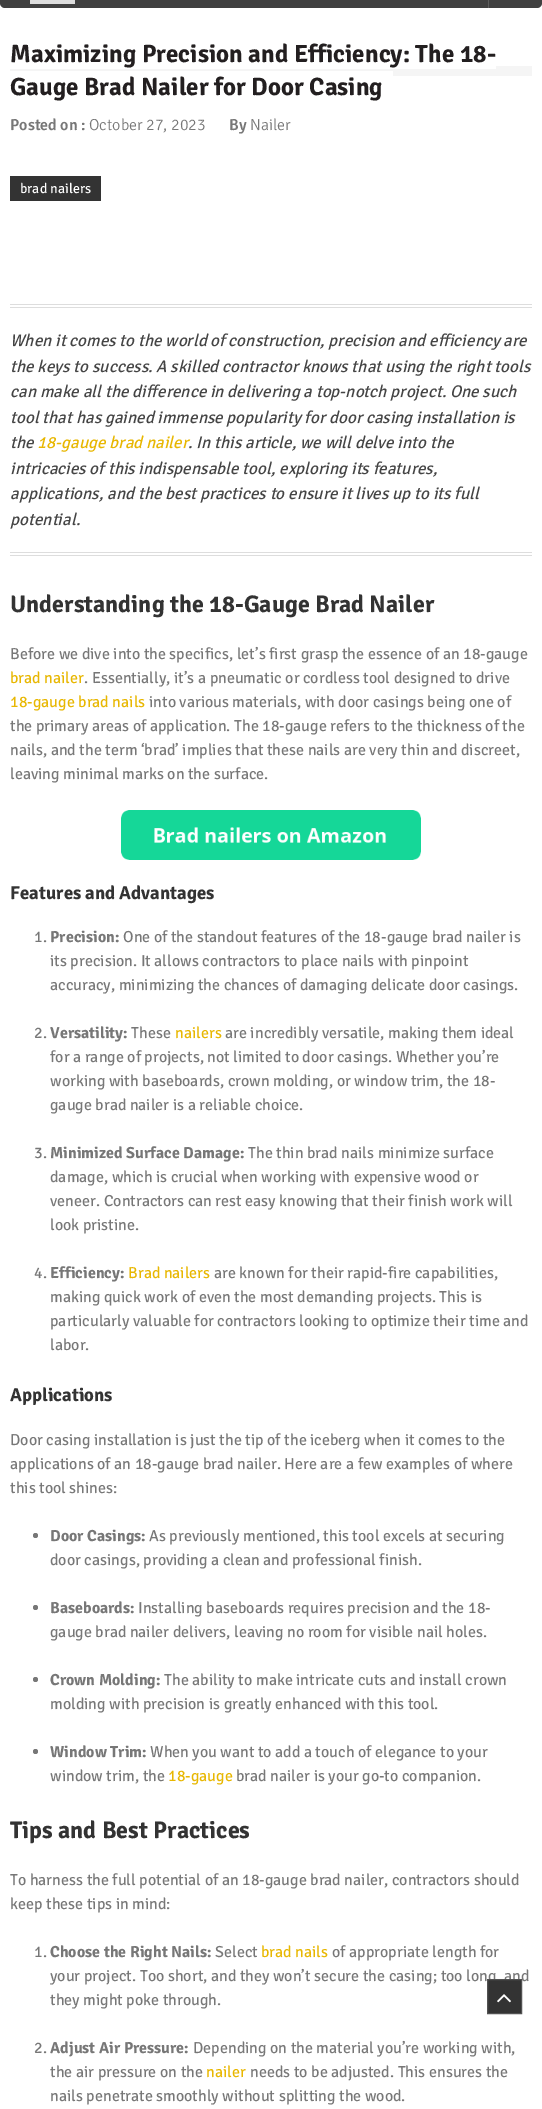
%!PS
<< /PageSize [542 2109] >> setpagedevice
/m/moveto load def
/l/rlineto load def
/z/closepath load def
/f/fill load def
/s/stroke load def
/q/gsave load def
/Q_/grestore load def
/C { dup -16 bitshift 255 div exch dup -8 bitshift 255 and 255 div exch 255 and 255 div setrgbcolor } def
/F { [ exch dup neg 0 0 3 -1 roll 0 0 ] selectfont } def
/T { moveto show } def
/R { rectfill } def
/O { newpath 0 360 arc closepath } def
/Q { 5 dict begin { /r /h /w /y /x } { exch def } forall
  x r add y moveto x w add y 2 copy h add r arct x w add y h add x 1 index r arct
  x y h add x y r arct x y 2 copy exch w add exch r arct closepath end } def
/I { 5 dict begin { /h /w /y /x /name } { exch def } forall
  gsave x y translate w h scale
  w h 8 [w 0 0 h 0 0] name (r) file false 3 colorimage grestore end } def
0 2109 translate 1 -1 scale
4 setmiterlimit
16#FFFFFF C
0 0 542 2109 R
16#404040 C
0 -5 542 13 5 Q f
16#DDDDDD C
30 0 45 4 R
16#5D5D5D C
488 0 1 8 R
16#F5F5F5 C
10 66 522 10 R
16#FFFFFF C
10 66 486 3 R
/SignikaNegative-Bold 25 F
16#231F20 C
(Maximizing Precision and Efficiency: The 18-) 10 62 T
(Gauge Brad Nailer for Door Casing) 10 95 T
16#FFFFFF C
10 71 383 5 R
/SignikaNegative-SemiBold 16 F
16#777777 C
(Posted on :) 10 130 T
/SignikaNegative-Light 16 F
(October 27, 2023) 89 130 T
/SignikaNegative-SemiBold 16 F
(By) 229 130 T
/SignikaNegative-Light 16 F
(Nailer) 250 130 T
16#333333 C
10 176 91 25 R
/SignikaNegative-Regular 14 F
16#FFFFFF C
(brad nailers) 20 193 T
16#DDDDDD C
10 304 522 1 R
10 307 522 1 R
10 552 522 1 R
10 555 522 1 R
/SignikaNegative-Italic 17 F
16#444444 C
(When it comes to the world of construction, precision and efficiency are) 10 346 T
(the keys to success. A skilled contractor knows that using the right tools) 10 372 T
(can make all the difference in delivering a top-notch project. One such) 10 397 T
(tool that has gained immense popularity for door casing installation is) 10 423 T
(the) 10 448 T
16#E8B701 C
(18-gauge brad nailer) 37 448 T
16#444444 C
(. In this article, we will delve into the) 188 448 T
(intricacies of this indispensable tool, exploring its features,) 10 474 T
(applications, and the best practices to ensure it lives up to its full) 10 499 T
(potential.) 10 525 T
/SignikaNegative-Bold 24 F
16#333333 C
(Understanding the 18-Gauge Brad Nailer) 10 612 T
/SignikaNegative-Regular 16 F
16#777777 C
(Before we dive into the specifics, let’s first grasp the essence of an 18-gauge) 10 659 T
16#E8B701 C
(brad nailer) 10 683 T
16#777777 C
(. Essentially, it’s a pneumatic or cordless tool designed to drive) 84 683 T
16#E8B701 C
(18-gauge brad nails) 10 707 T
16#777777 C
(into various materials, with door casings being one of) 149 707 T
(the primary areas of application. The 18-gauge refers to the thickness of the) 10 731 T
(nails, and the term ‘brad’ implies that these nails are very thin and discreet,) 10 755 T
(leaving minimal marks on the surface.) 10 779 T
(1.rgb) 121 810 300 50 I
/SignikaNegative-Bold 18.75 F
16#333333 C
(Features and Advantages) 10 899 T
/SignikaNegative-Regular 16 F
16#777777 C
(1.) 34 942 T
/SignikaNegative-Bold 16 F
(Precision:) 50 942 T
/SignikaNegative-Regular 16 F
(One of the standout features of the 18-gauge brad nailer is) 123 942 T
(its precision. It allows contractors to place nails with pinpoint) 50 966 T
(accuracy, minimizing the chances of damaging delicate door casings.) 50 990 T
(2.) 34 1038 T
/SignikaNegative-Bold 16 F
(Versatility:) 50 1038 T
/SignikaNegative-Regular 16 F
(These) 131 1038 T
16#E8B701 C
(nailers) 175 1038 T
16#777777 C
(are incredibly versatile, making them ideal) 225 1038 T
(for a range of projects, not limited to door casings. Whether you’re) 50 1062 T
(working with baseboards, crown molding, or window trim, the 18-) 50 1086 T
(gauge brad nailer is a reliable choice.) 50 1110 T
(3.) 34 1158 T
/SignikaNegative-Bold 16 F
(Minimized Surface Damage:) 50 1158 T
/SignikaNegative-Regular 16 F
(The thin brad nails minimize surface) 248 1158 T
(damage, which is crucial when working with expensive wood or) 50 1182 T
(veneer. Contractors can rest easy knowing that their finish work will) 50 1206 T
(look pristine.) 50 1230 T
(4.) 34 1278 T
/SignikaNegative-Bold 16 F
(Efficiency:) 50 1278 T
/SignikaNegative-Regular 16 F
16#E8B701 C
(Brad nailers) 128 1278 T
16#777777 C
(are known for their rapid-fire capabilities,) 214 1278 T
(making quick work of even the most demanding projects. This is) 50 1302 T
(particularly valuable for contractors looking to optimize their time and) 50 1326 T
(labor.) 50 1350 T
/SignikaNegative-Bold 18.75 F
16#333333 C
(Applications) 10 1401 T
/SignikaNegative-Regular 16 F
16#777777 C
(Door casing installation is just the tip of the iceberg when it comes to the) 10 1445 T
(applications of an 18-gauge brad nailer. Here are a few examples of where) 10 1469 T
(this tool shines:) 10 1493 T
35.5 1535.5 2.5 O f
/SignikaNegative-Bold 16 F
(Door Casings:) 50 1541 T
/SignikaNegative-Regular 16 F
(As previously mentioned, this tool excels at securing) 149 1541 T
(door casings, providing a clean and professional finish.) 50 1565 T
35.5 1607.5 2.5 O f
/SignikaNegative-Bold 16 F
(Baseboards:) 50 1613 T
/SignikaNegative-Regular 16 F
(Installing baseboards requires precision and the 18-) 138 1613 T
(gauge brad nailer delivers, leaving no room for visible nail holes.) 50 1637 T
35.5 1679.5 2.5 O f
/SignikaNegative-Bold 16 F
(Crown Molding:) 50 1685 T
/SignikaNegative-Regular 16 F
(The ability to make intricate cuts and install crown) 164 1685 T
(molding with precision is greatly enhanced with this tool.) 50 1709 T
35.5 1751.5 2.5 O f
/SignikaNegative-Bold 16 F
(Window Trim:) 50 1757 T
/SignikaNegative-Regular 16 F
(When you want to add a touch of elegance to your) 150 1757 T
(window trim, the) 50 1781 T
16#E8B701 C
(18-gauge) 168 1781 T
16#777777 C
(brad nailer is your go-to companion.) 236 1781 T
/SignikaNegative-Bold 24 F
16#333333 C
(Tips and Best Practices) 10 1838 T
/SignikaNegative-Regular 16 F
16#777777 C
(To harness the full potential of an 18-gauge brad nailer, contractors should) 10 1885 T
(keep these tips in mind:) 10 1909 T
(1.) 34 1957 T
/SignikaNegative-Bold 16 F
(Choose the Right Nails:) 50 1957 T
/SignikaNegative-Regular 16 F
(Select) 215 1957 T
16#E8B701 C
(brad nails) 261 1957 T
16#777777 C
(of appropriate length for) 332 1957 T
(your project. Too short, and they won’t secure the casing; too long, and) 50 1981 T
(they might poke through.) 50 2005 T
(2.) 34 2053 T
/SignikaNegative-Bold 16 F
(Adjust Air Pressure:) 50 2053 T
/SignikaNegative-Regular 16 F
(Depending on the material you’re working with,) 193 2053 T
(the air pressure on the) 50 2077 T
16#E8B701 C
(nailer) 206 2077 T
16#777777 C
(needs to be adjusted. This ensures the) 250 2077 T
(nails penetrate smoothly without splitting the wood.) 50 2101 T
16#333333 C
487.5 1979.5 m 34 0 l 0 34 l -34 0 l z q f Q_
16#525252 C
s
(2.rgb) 497 1994 14 9 I
showpage
